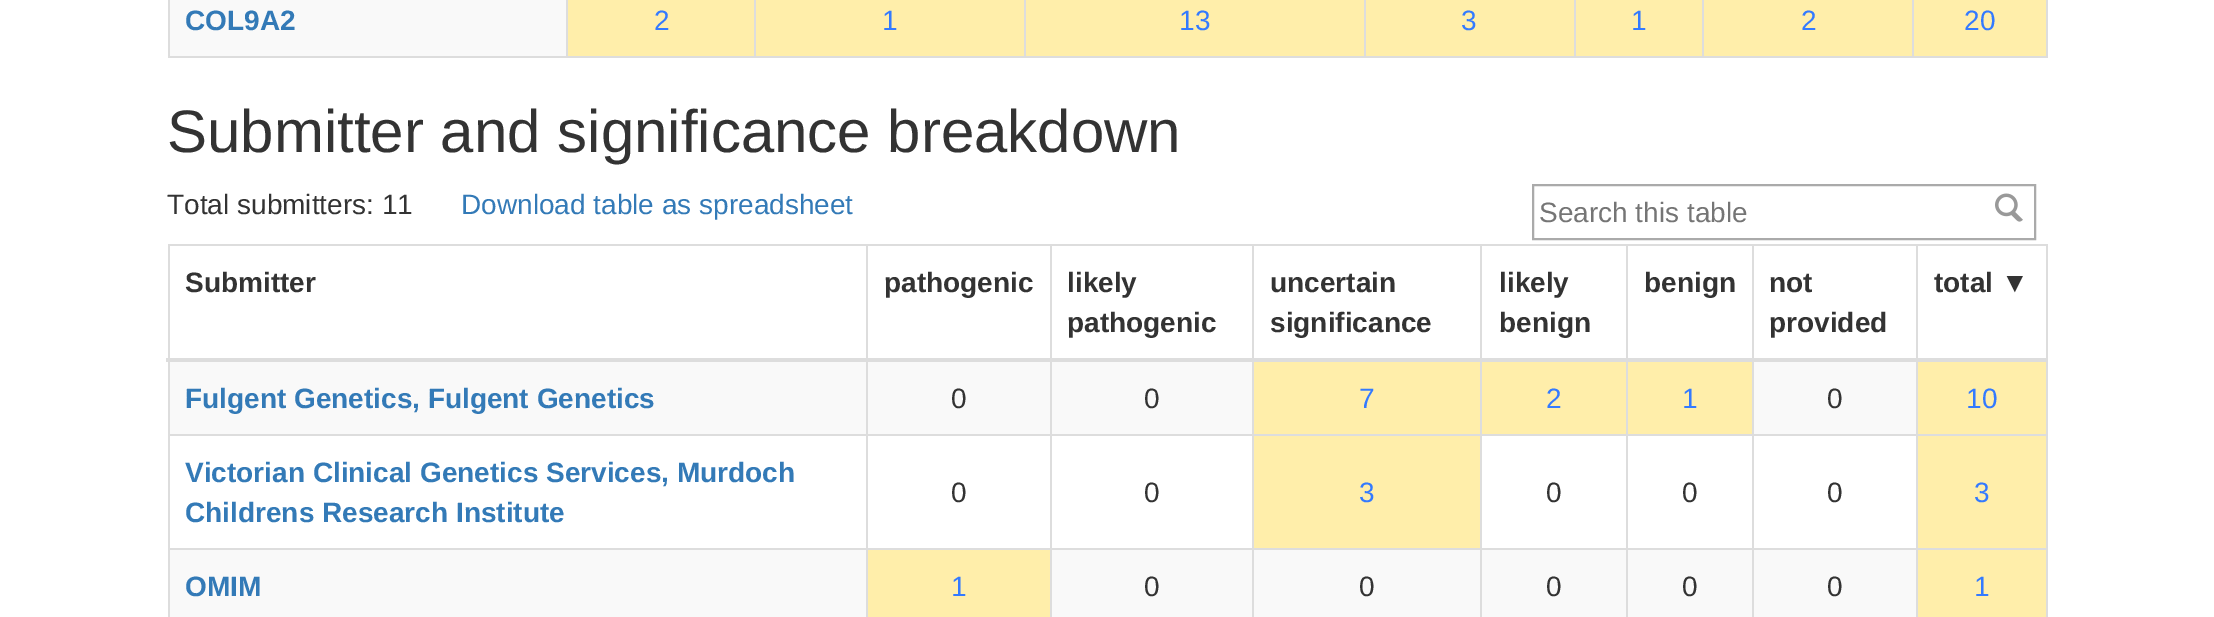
%!PS
<< /PageSize [2214 617] >> setpagedevice
/w/setlinewidth load def
/C { dup -16 bitshift 255 div exch dup -8 bitshift 255 and 255 div exch 255 and 255 div setrgbcolor } def
/F { [ exch dup neg 0 0 3 -1 roll 0 0 ] selectfont } def
/T { moveto show } def
/R { rectfill } def
/I { 5 dict begin { /h /w /y /x /name } { exch def } forall
  gsave x y translate w h scale
  w h 8 [w 0 0 h 0 0] name (r) file false 3 colorimage grestore end } def
0 617 translate 1 -1 scale
4 setmiterlimit
16#FFFFFF C
0 0 2214 617 R
16#DDDDDD C
2046 0 2 58 R
168 56 1880 2 R
168 0 2 58 R
16#F9F9F9 C
170 0 396 56 R
/LiberationSans-Bold 28 F
16#337AB7 C
(COL9A2) 185 30 T
16#FFEEAA C
568 0 186 56 R
16#DDDDDD C
566 0 2 58 R
/LiberationSans-Regular 28 F
16#337AFF C
(2) 654 30 T
16#FFEEAA C
756 0 268 56 R
16#DDDDDD C
754 0 2 58 R
16#337AFF C
(1) 882 30 T
16#FFEEAA C
1026 0 338 56 R
16#DDDDDD C
1024 0 2 58 R
16#337AFF C
(13) 1179 30 T
16#FFEEAA C
1366 0 208 56 R
16#DDDDDD C
1364 0 2 58 R
16#337AFF C
(3) 1461 30 T
16#FFEEAA C
1576 0 126 56 R
16#DDDDDD C
1574 0 2 58 R
16#337AFF C
(1) 1631 30 T
16#FFEEAA C
1704 0 208 56 R
16#DDDDDD C
1702 0 2 58 R
16#337AFF C
(2) 1801 30 T
16#FFEEAA C
1914 0 132 56 R
16#DDDDDD C
1912 0 2 58 R
16#337AFF C
(20) 1964 30 T
/LiberationSans-Regular 60 F
16#333333 C
(Submitter and significance breakdown) 167 152 T
/LiberationSans-Regular 28 F
(Total submitters: 11) 167 214 T
16#337AB7 C
(Download table as spreadsheet) 461 214 T
16#AAAAAA C
2 w
1533 185 502 54 rectstroke
16#757575 C
(Search this table) 1539 222 T
(1.rgb) 1995 193 28 29 I
16#DDDDDD C
168 244 1880 2 R
2046 244 2 373 R
168 244 2 373 R
/LiberationSans-Bold 28 F
16#333333 C
(Submitter) 185 292 T
(pathogenic) 884 292 T
(likely) 1067 292 T
(pathogenic) 1067 332 T
(uncertain) 1270 292 T
(significance) 1270 332 T
(likely) 1499 292 T
(benign) 1499 332 T
(benign) 1644 292 T
(not) 1769 292 T
(provided) 1769 332 T
16#F9F9F9 C
170 362 1746 72 R
16#DDDDDD C
1916 434 132 2 R
1916 548 132 2 R
1916 548 2 69 R
1752 548 166 2 R
1916 434 2 116 R
1752 434 166 2 R
16#F9F9F9 C
170 550 1746 67 R
16#DDDDDD C
1752 548 2 69 R
1626 548 128 2 R
1752 434 2 116 R
1626 434 128 2 R
1626 548 2 69 R
1480 548 148 2 R
1626 434 2 116 R
1480 434 148 2 R
1480 548 2 69 R
1252 548 230 2 R
1480 434 2 116 R
1252 434 230 2 R
1252 548 2 69 R
1050 548 204 2 R
1252 434 2 116 R
1050 434 204 2 R
1050 548 2 69 R
866 548 186 2 R
1050 434 2 116 R
866 434 186 2 R
866 548 2 69 R
168 548 700 2 R
866 434 2 116 R
168 434 700 2 R
866 244 2 192 R
1050 244 2 192 R
1252 244 2 192 R
1480 244 2 192 R
1626 244 2 192 R
1752 244 2 192 R
1916 244 2 192 R
166 358 1882 4 R
16#333333 C
(total ▼) 1934 292 T
16#337AB7 C
(Fulgent Genetics, Fulgent Genetics) 185 408 T
/LiberationSans-Regular 28 F
16#333333 C
(0) 951 408 T
(0) 1144 408 T
16#FFEEAA C
1254 362 226 72 R
16#337AFF C
(7) 1359 408 T
16#FFEEAA C
1482 362 144 72 R
16#337AFF C
(2) 1546 408 T
16#FFEEAA C
1628 362 124 72 R
16#337AFF C
(1) 1682 408 T
16#333333 C
(0) 1827 408 T
16#FFEEAA C
1918 362 128 72 R
16#337AFF C
(10) 1966 408 T
/LiberationSans-Bold 28 F
16#337AB7 C
(Victorian Clinical Genetics Services, Murdoch) 185 482 T
(Childrens Research Institute) 185 522 T
/LiberationSans-Regular 28 F
16#333333 C
(0) 951 502 T
(0) 1144 502 T
16#FFEEAA C
1254 436 226 112 R
16#337AFF C
(3) 1359 502 T
16#333333 C
(0) 1546 502 T
(0) 1682 502 T
(0) 1827 502 T
16#FFEEAA C
1918 436 128 112 R
16#337AFF C
(3) 1974 502 T
/LiberationSans-Bold 28 F
16#337AB7 C
(OMIM) 185 596 T
16#FFEEAA C
868 550 182 67 R
/LiberationSans-Regular 28 F
16#337AFF C
(1) 951 596 T
16#333333 C
(0) 1144 596 T
(0) 1359 596 T
(0) 1546 596 T
(0) 1682 596 T
(0) 1827 596 T
16#FFEEAA C
1918 550 128 67 R
16#337AFF C
(1) 1974 596 T
showpage
